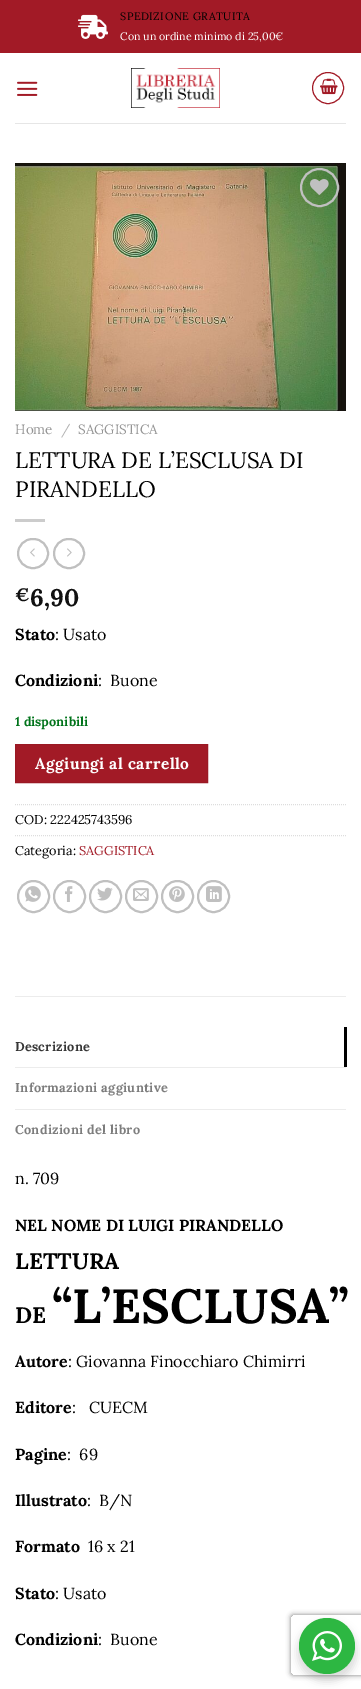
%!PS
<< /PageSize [361 1689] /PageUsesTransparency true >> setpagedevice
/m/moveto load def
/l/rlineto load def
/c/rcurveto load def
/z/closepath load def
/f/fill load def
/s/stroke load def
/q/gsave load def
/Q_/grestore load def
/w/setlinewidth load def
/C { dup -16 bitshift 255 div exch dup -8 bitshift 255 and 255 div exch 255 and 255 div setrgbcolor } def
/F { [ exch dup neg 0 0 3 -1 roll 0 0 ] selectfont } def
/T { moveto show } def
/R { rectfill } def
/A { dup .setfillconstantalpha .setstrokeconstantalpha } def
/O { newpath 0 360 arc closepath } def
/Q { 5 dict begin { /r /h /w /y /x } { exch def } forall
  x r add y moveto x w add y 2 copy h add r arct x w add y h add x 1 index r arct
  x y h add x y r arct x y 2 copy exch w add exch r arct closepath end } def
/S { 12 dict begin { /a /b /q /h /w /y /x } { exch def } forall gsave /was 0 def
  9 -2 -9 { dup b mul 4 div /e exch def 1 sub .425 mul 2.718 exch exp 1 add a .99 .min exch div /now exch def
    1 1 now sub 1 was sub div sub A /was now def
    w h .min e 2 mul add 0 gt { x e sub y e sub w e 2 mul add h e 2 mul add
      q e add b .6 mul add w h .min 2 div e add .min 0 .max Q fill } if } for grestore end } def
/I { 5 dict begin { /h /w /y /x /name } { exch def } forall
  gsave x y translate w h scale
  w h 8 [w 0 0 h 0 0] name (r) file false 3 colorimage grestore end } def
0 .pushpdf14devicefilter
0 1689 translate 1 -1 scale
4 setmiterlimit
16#FFFFFF C
0 0 361 1689 R
16#A21A26 C
0 0 361 53 R
(1.rgb) 78 14 30 25 I
/Lora-Regular 10.75 F
16#000000 C
120 20 m .5 0 (SPEDIZIONE GRATUITA) ashow
16#FFFFFF C
(Con un ordine minimo di 25,00€) 120 40 T
(2.rgb) 17 81 21 15 I
(3.rgb) 131 68 89 40 I
16#A21A26 C
328 88 15.5 O s
(4.rgb) 320 78 18 17 I
16#E6E6E6 C
15 123 331 1 R
(5.rgb) 15 163 331 248 I
16#C0C0C0 C
2 w
319.5 187.5 18.5 O s
(6.rgb) 310 179 19 16 I
/Lora-Regular 13.5 F
16#949494 C
(Home) 15 434 T
16#B2B2B2 C
(/) 61 434 T
16#949494 C
(SAGGISTICA) 78 434 T
/Lora-Regular 22.4 F
16#000000 C
(LETTURA DE L’ESCLUSA DI) 15 468 T
(PIRANDELLO) 15 497 T
16#CCCCCC C
15 519 30 3 R
16#C0C0C0 C
18 539 30 29 14.5 Q s
(7.rgb) 30 548 5 9 I
54 539 30 29 14.5 Q s
(8.rgb) 67 548 5 9 I
/Lora-Bold 18 F
16#111111 C
(€) 15 601 T
/Lora-Bold 24 F
(6,90) 30 606 T
/Lora-Bold 16 F
16#000000 C
(Stato) 15 640 T
/Lora-Regular 16 F
(: Usato) 55 640 T
/Lora-Bold 16 F
(Condizioni) 15 686 T
/Lora-Regular 16 F
(:  Buone) 98 686 T
/Lora-Bold 12.75 F
16#00731A C
(1 disponibili) 15 726 T
16#A21A26 C
15.5 744.5 m 192 0 l 0 38 l -192 0 l z q f Q_
16#9A1924 C
1 w
s
/Lora-Bold 15.5 F
16#FFFFFF C
35 769 m .5 0 (Aggiungi al carrello) ashow
16#DDDDDD C
[1 1] 0 setdash
15 804.5 m 331 0 l s
/Lora-Regular 12.75 F
16#000000 C
(COD: 222425743596) 15 824 T
16#DDDDDD C
15 835.5 m 331 0 l s
16#000000 C
(Categoria:) 15 855 T
16#A21A26 C
(SAGGISTICA) 79 855 T
16#C0C0C0 C
2 w
[] 0 setdash
33.5 896.5 15.5 O s
(9.rgb) 25 886 16 16 I
69.5 896.5 15.5 O s
(10.rgb) 65 886 8 16 I
105.5 896.5 15.5 O s
(11.rgb) 97 887 16 14 I
141.5 896.5 15.5 O s
(12.rgb) 133 888 16 13 I
177.5 896.5 15.5 O s
(13.rgb) 169 886 16 16 I
213.5 896.5 15.5 O s
(14.rgb) 206 886 16 16 I
16#ECECEC C
15 996 331 1 R
/Lora-Bold 12.75 F
16#363636 C
15 1051 m .25 0 (Descrizione) ashow
16#000000 C
344 1027 3 40 R
16#ECECEC C
15 1067 331 1 R
16#7D7D7D C
15 1092 m .25 0 (Informazioni aggiuntive) ashow
16#ECECEC C
15 1109 331 1 R
16#7D7D7D C
15 1134 m .25 0 (Condizioni del libro) ashow
/Lora-Regular 16 F
16#000000 C
(n. 709) 15 1184 T
/Lora-Bold 16 F
(NEL NOME DI LUIGI PIRANDELLO) 15 1231 T
/Lora-Bold 22.4 F
(LETTURA) 15 1269 T
(DE) 15 1323 T
/Lora-Bold 48 F
(“L’ESCLUSA”) 52 1323 T
/Lora-Bold 16 F
(Autore) 15 1367 T
/Lora-Regular 16 F
(: Giovanna Finocchiaro Chimirri) 68 1367 T
/Lora-Bold 16 F
(Editore) 15 1413 T
/Lora-Regular 16 F
(:   CUECM) 72 1413 T
/Lora-Bold 16 F
(Pagine) 15 1460 T
/Lora-Regular 16 F
(:  69) 67 1460 T
/Lora-Bold 16 F
(Illustrato) 15 1506 T
/Lora-Regular 16 F
(:  B/N) 87 1506 T
/Lora-Bold 16 F
(Formato) 15 1552 T
/Lora-Regular 16 F
(16 x 21) 88 1552 T
/Lora-Bold 16 F
(Stato) 15 1599 T
/Lora-Regular 16 F
(: Usato) 55 1599 T
/Lora-Bold 16 F
(Condizioni) 15 1645 T
/Lora-Regular 16 F
(:  Buone) 98 1645 T
q
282 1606 m 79 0 l 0 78 l -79 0 l z 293 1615 m 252 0 l 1 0 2 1 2 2 c 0 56 l 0 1 -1 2 -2 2 c -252 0 l -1 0 -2 -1 -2 -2 c 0 -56 l 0 -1 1 -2 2 -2 c z eoclip newpath
16#808080 C
291 1615 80 60 2 2.5 1 S
Q_
297 1622 60 60 30 4 .14 S
16#2DB742 C
327 1646 28 O f
(15.rgb) 312 1631 30 30 I
.poppdf14devicefilter showpage
